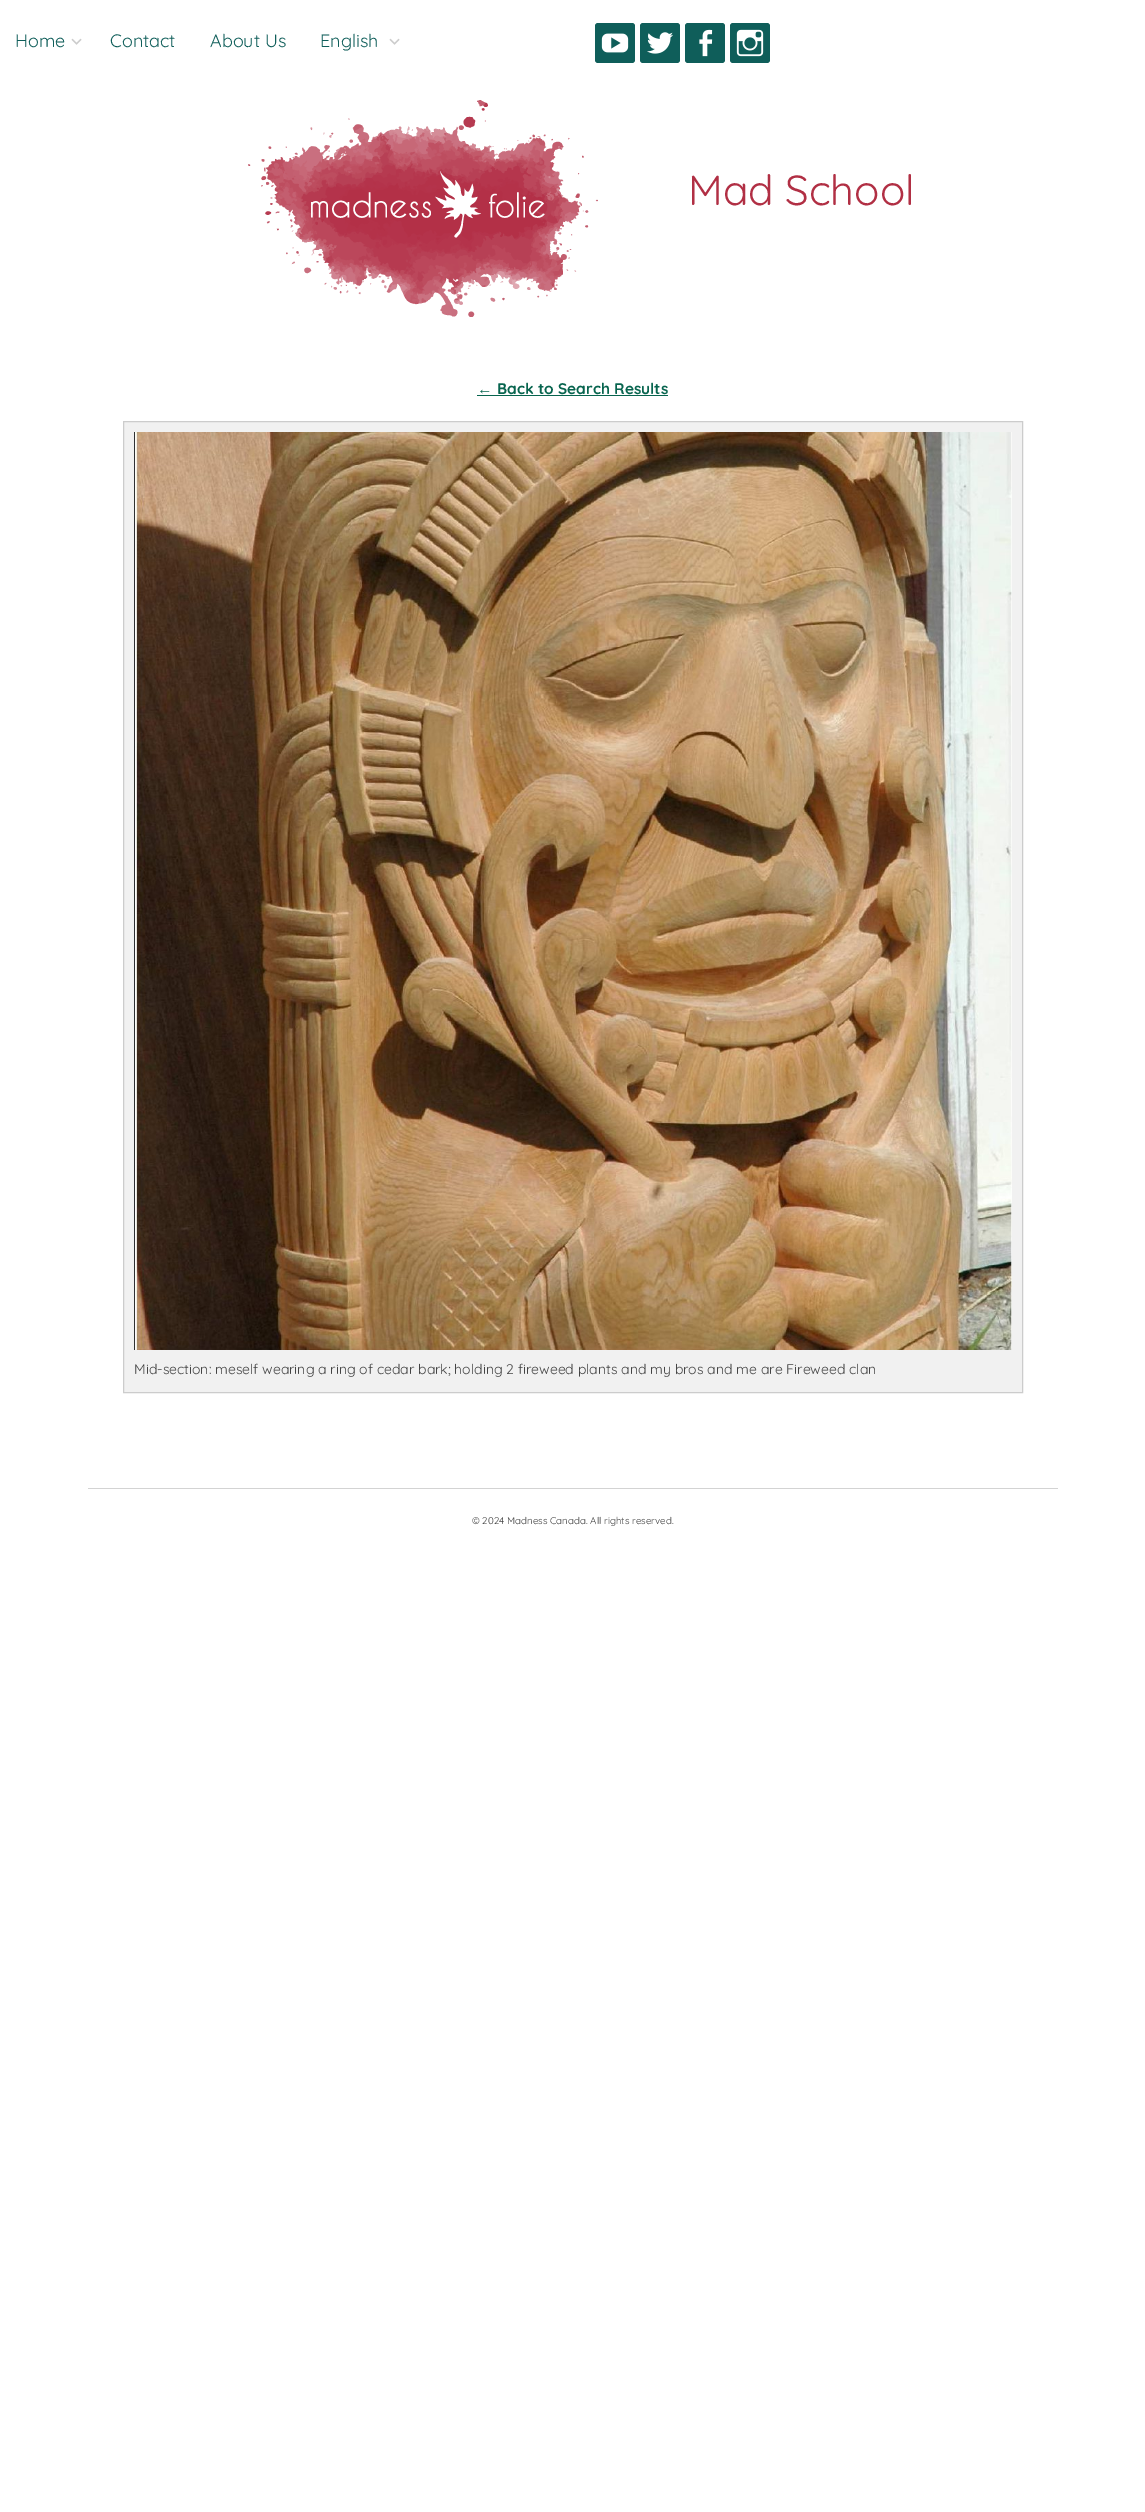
%!PS
<< /PageSize [1145 2512] >> setpagedevice
/m/moveto load def
/l/rlineto load def
/z/closepath load def
/f/fill load def
/s/stroke load def
/q/gsave load def
/Q_/grestore load def
/C { dup -16 bitshift 255 div exch dup -8 bitshift 255 and 255 div exch 255 and 255 div setrgbcolor } def
/F { [ exch dup neg 0 0 3 -1 roll 0 0 ] selectfont } def
/T { moveto show } def
/R { rectfill } def
/Q { 5 dict begin { /r /h /w /y /x } { exch def } forall
  x r add y moveto x w add y 2 copy h add r arct x w add y h add x 1 index r arct
  x y h add x y r arct x y 2 copy exch w add exch r arct closepath end } def
/I { 5 dict begin { /h /w /y /x /name } { exch def } forall
  gsave x y translate w h scale
  w h 8 [w 0 0 h 0 0] name (r) file false 3 colorimage grestore end } def
0 2512 translate 1 -1 scale
4 setmiterlimit
16#FFFFFF C
0 0 1145 2512 R
/Quicksand-Regular 18 F
16#0F5E5A C
(Home) 15 47 T
(1.rgb) 71 38 11 7 I
(Contact) 110 47 T
(About Us) 210 47 T
(English) 320 47 T
(1.rgb) 389 38 11 7 I
595 23 40 40 3 Q f
(2.rgb) 601 33 28 20 I
640 23 40 40 3 Q f
(3.rgb) 647 32 26 22 I
685 23 40 40 3 Q f
(4.rgb) 699 29 14 28 I
730 23 40 40 3 Q f
(5.rgb) 736 29 28 28 I
(6.rgb) 248 100 350 217 I
/Quicksand-Regular 42 F
16#B12F44 C
(Mad School) 688 205 T
/LiberationSans-Bold 15.4 F
16#07644E C
(←) 477 394 T
477 395 191 1 R
/Quicksand-Bold 15.4 F
(Back to Search Results) 497 394 T
16#F1F1F1 C
123.5 421.5 m 899 0 l 0 971 l -899 0 l z q f Q_
16#CCCCCC C
s
(7.rgb) 134 432 878 918 I
/Quicksand-Regular 14 F
16#444444 C
(Mid-section: meself wearing a ring of cedar bark; holding 2 fireweed plants and my bros and me are Fireweed clan) 134 1374 T
16#D3D3D3 C
88 1488 970 1 R
/Quicksand-Regular 9.8 F
16#444444 C
(© 2024 Madness Canada. All rights reserved.) 472 1524 T
showpage
